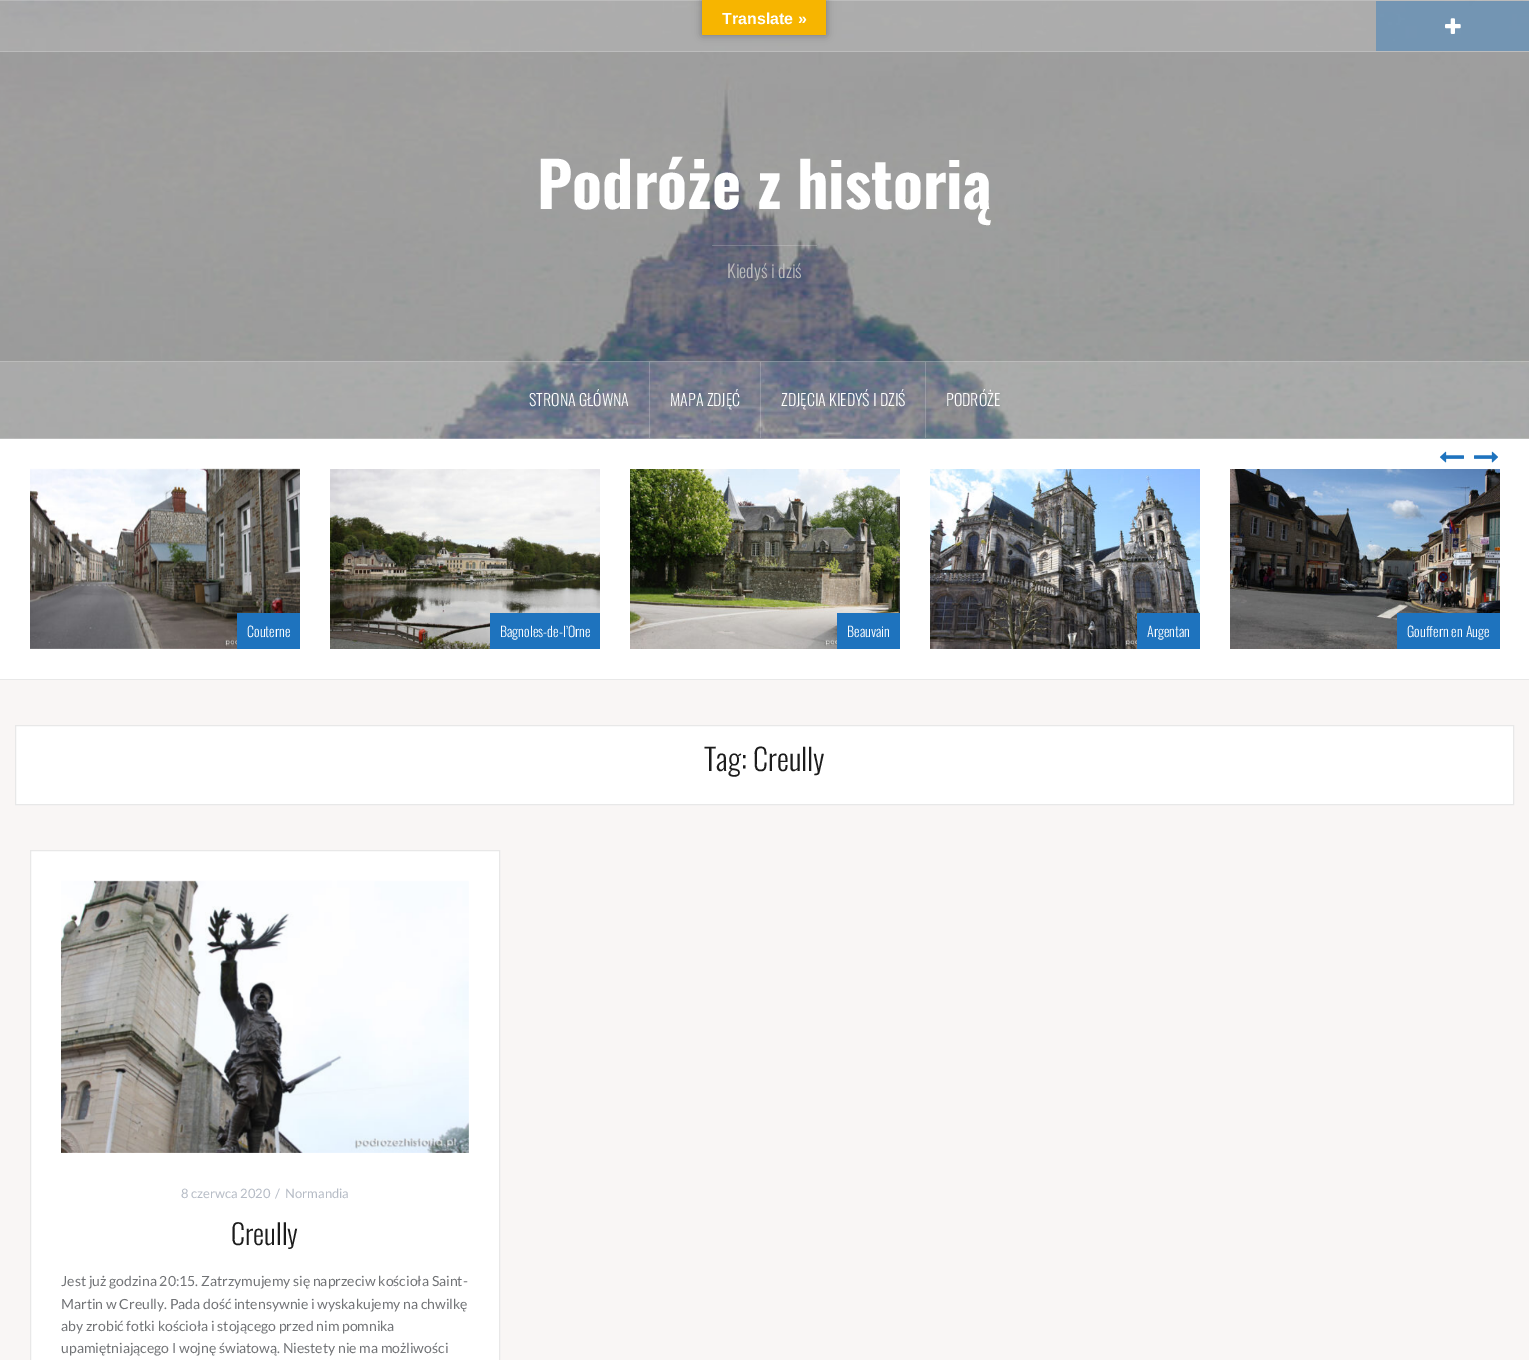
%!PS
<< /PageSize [1529 1360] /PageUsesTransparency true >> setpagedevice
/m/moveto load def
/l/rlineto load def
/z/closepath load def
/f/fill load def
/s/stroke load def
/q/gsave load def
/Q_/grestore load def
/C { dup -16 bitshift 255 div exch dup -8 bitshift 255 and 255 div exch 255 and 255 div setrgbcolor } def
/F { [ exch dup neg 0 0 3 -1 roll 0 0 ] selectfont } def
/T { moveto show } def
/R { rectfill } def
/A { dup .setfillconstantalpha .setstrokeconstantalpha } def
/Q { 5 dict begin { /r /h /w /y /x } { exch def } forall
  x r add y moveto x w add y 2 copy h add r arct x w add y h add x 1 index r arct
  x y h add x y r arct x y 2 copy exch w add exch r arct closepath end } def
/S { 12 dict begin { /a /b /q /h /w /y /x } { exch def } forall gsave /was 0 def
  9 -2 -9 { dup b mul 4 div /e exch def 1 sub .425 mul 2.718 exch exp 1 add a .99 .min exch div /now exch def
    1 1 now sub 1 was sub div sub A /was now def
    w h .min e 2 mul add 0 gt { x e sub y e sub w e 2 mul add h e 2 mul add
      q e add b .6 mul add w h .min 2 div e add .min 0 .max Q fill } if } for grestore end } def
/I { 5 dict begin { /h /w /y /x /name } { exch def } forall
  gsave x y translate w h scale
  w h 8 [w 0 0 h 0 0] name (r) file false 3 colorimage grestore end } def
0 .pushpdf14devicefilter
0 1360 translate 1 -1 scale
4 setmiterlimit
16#F9F6F5 C
0 0 1529 1360 R
(1.rgb) 0 0 1529 439 I
0.15 A
16#FFFFFF C
0 0 1529 52 R
0.2 A
0 0 1529 1 R
1 A
16#000000 C
702 0 124 35 0 4.5 .3 S
16#F7B500 C
702 0 124 35 R
/LiberationSans-Bold 16 F
16#FFFFFF C
(Translate ») 722 24 T
0.2 A
0 51 1529 1 R
0.4 A
16#1E73BE C
1376 1 153 50 R
1 A
(2.rgb) 1445 18 16 16 I
/Oswald-Bold 62 F
16#FFFFFF C
(Podróże z historią) 537 209 T
0.2 A
712 245 105 1 R
/Oswald-Light 18 F
1 A
16#BBBBBB C
(Kiedyś i dziś) 727 278 T
0.15 A
16#FFFFFF C
0 361 1529 78 R
0.2 A
0 361 1529 1 R
0 438 1529 1 R
649 362 1 76 R
/Oswald-Light 16 F
1 A
(STRONA GŁÓWNA) 529 406 T
0.2 A
760 362 1 76 R
1 A
(MAPA ZDJĘĆ) 670 406 T
0.2 A
925 362 1 76 R
1 A
(ZDJĘCIA KIEDYŚ I DZIŚ) 781 406 T
(PODRÓŻE) 946 406 T
0 439 1529 240 R
16#E8E8E8 C
0 679 1529 1 R
(3.rgb) 1439 451 25 12 I
(4.rgb) 1474 451 24 12 I
(5.rgb) 30 468 270 181 I
16#1E73BE C
237 613 63 36 R
/Oswald-Light 14 F
16#FFFFFF C
(Couterne) 247 637 T
(6.rgb) 330 469 270 180 I
16#1E73BE C
490 613 110 36 R
16#FFFFFF C
(Bagnoles-de-l’Orne) 500 637 T
(7.rgb) 630 469 270 180 I
16#1E73BE C
837 613 63 36 R
16#FFFFFF C
(Beauvain) 847 637 T
(8.rgb) 930 469 270 180 I
16#1E73BE C
1137 613 63 36 R
16#FFFFFF C
(Argentan) 1147 637 T
(9.rgb) 1230 469 270 180 I
16#1E73BE C
1397 613 103 36 R
16#FFFFFF C
(Gouffern en Auge) 1407 637 T
15.5 725.5 m 1498 0 l 0 79 l -1498 0 l z q f Q_
16#E8E8E8 C
s
/Oswald-Light 30 F
16#1C1C1C C
(Tag: Creully) 704 771 T
16#FFFFFF C
30.5 850.5 m 469 0 l 0 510 l -469 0 l z q f Q_
16#E8E8E8 C
s
(10.rgb) 61 880 408 273 I
/Lato-Regular 13 F
16#B5BBC5 C
(8 czerwca 2020) 181 1198 T
(/) 275 1198 T
(Normandia) 285 1198 T
/Oswald-Light 28 F
16#1C1C1C C
(Creully) 231 1245 T
/Lato-Regular 14 F
16#717376 C
(Jest już godzina 20:15. Zatrzymujemy się naprzeciw kościoła Saint-) 61 1286 T
(Martin w Creully. Pada dość intensywnie i wyskakujemy na chwilkę) 61 1309 T
(aby zrobić fotki kościoła i stojącego przed nim pomnika) 61 1331 T
(upamiętniającego I wojnę światową. Niestety nie ma możliwości) 61 1353 T
.poppdf14devicefilter showpage
